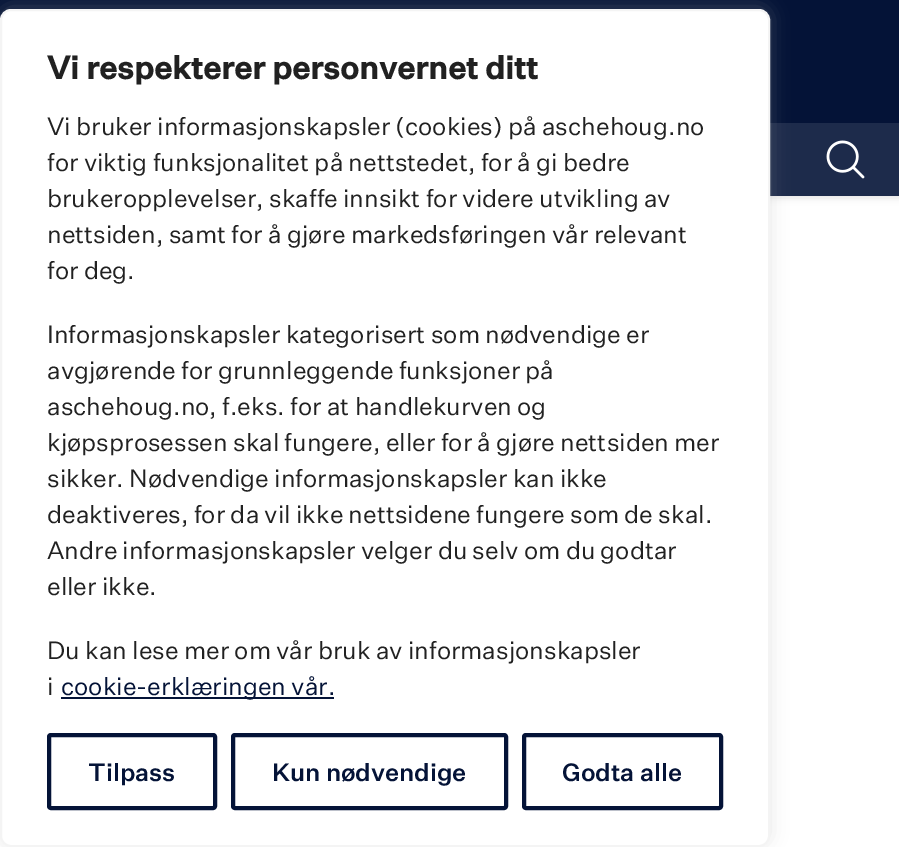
%!PS
<< /PageSize [899 847] /PageUsesTransparency true >> setpagedevice
/f/fill load def
/s/stroke load def
/q/gsave load def
/Q_/grestore load def
/w/setlinewidth load def
/C { dup -16 bitshift 255 div exch dup -8 bitshift 255 and 255 div exch 255 and 255 div setrgbcolor } def
/F { [ exch dup neg 0 0 3 -1 roll 0 0 ] selectfont } def
/T { moveto show } def
/R { rectfill } def
/A { dup .setfillconstantalpha .setstrokeconstantalpha } def
/Q { 5 dict begin { /r /h /w /y /x } { exch def } forall
  x r add y moveto x w add y 2 copy h add r arct x w add y h add x 1 index r arct
  x y h add x y r arct x y 2 copy exch w add exch r arct closepath end } def
/S { 12 dict begin { /a /b /q /h /w /y /x } { exch def } forall gsave /was 0 def
  9 -2 -9 { dup b mul 4 div /e exch def 1 sub .425 mul 2.718 exch exp 1 add a .99 .min exch div /now exch def
    1 1 now sub 1 was sub div sub A /was now def
    w h .min e 2 mul add 0 gt { x e sub y e sub w e 2 mul add h e 2 mul add
      q e add b .6 mul add w h .min 2 div e add .min 0 .max Q fill } if } for grestore end } def
/I { 5 dict begin { /h /w /y /x /name } { exch def } forall
  gsave x y translate w h scale
  w h 8 [w 0 0 h 0 0] name (r) file false 3 colorimage grestore end } def
0 .pushpdf14devicefilter
0 847 translate 1 -1 scale
4 setmiterlimit
16#FFFFFF C
0 0 899 847 R
16#000000 C
2 124 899 74 0 3.5 .1 S
16#041337 C
0 0 899 123 R
16#1D2B4B C
770 123 129 73 R
(1.rgb) 826 140 39 39 I
16#ACABAB C
0 7 770 838 11 9 .3 S
16#FFFFFF C
1 10 768 836 10 Q q f Q_
16#F4F4F4 C
2 w
s
/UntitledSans-Bold 31.5 F
16#212121 C
(Vi respekterer personvernet ditt) 47 79 T
/UntitledSans-Regular 24.5 F
(Vi bruker informasjonskapsler \(cookies\) på aschehoug.no) 47 135 T
(for viktig funksjonalitet på nettstedet, for å gi bedre) 47 171 T
(brukeropplevelser, skaffe innsikt for videre utvikling av) 47 207 T
(nettsiden, samt for å gjøre markedsføringen vår relevant) 47 243 T
(for deg.) 47 279 T
(Informasjonskapsler kategorisert som nødvendige er) 47 343 T
(avgjørende for grunnleggende funksjoner på) 47 379 T
(aschehoug.no, f.eks. for at handlekurven og) 47 415 T
(kjøpsprosessen skal fungere, eller for å gjøre nettsiden mer) 47 451 T
(sikker. Nødvendige informasjonskapsler kan ikke) 47 487 T
(deaktiveres, for da vil ikke nettsidene fungere som de skal.) 47 523 T
(Andre informasjonskapsler velger du selv om du godtar) 47 559 T
(eller ikke.) 47 595 T
(Du kan lese mer om vår bruk av informasjonskapsler) 47 659 T
(i) 47 695 T
16#041337 C
61 697 273 2 R
(cookie-erklæringen vår.) 61 695 T
4 w
49 735 166 73 2 Q s
/UntitledSans-Medium 24.5 F
(Tilpass) 88 781 T
233 735 273 73 2 Q s
(Kun nødvendige) 272 781 T
524 735 197 73 2 Q s
(Godta alle) 562 781 T
.poppdf14devicefilter showpage
